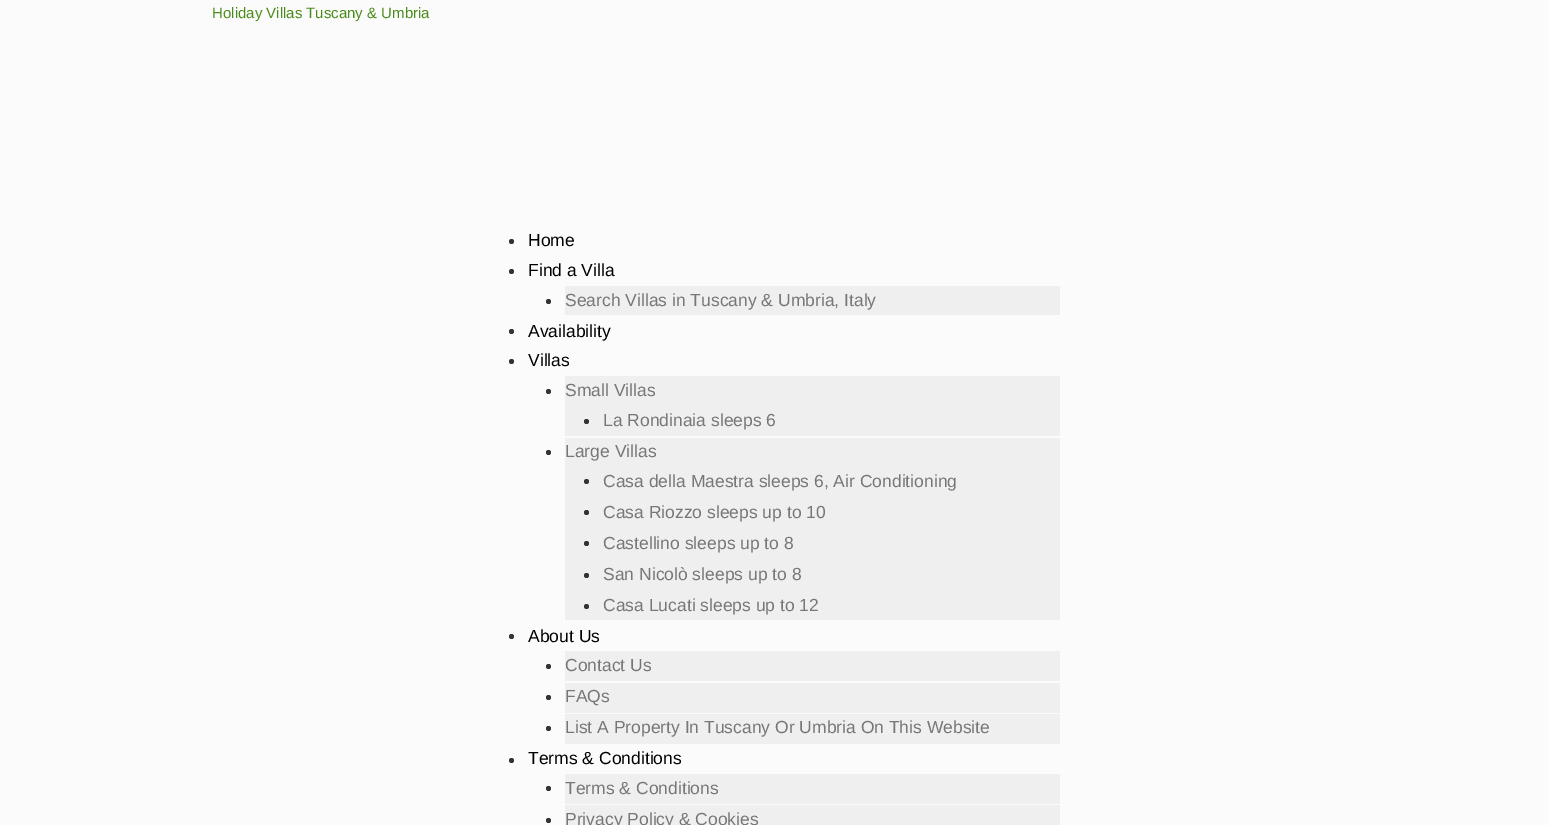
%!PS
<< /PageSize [1549 825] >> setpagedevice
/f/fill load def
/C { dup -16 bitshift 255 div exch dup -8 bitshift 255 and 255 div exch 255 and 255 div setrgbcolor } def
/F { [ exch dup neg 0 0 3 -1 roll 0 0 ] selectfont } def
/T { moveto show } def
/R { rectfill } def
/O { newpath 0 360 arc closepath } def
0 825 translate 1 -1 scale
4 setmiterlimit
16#FBFBFB C
0 0 1549 825 R
/LiberationSans-Regular 15 F
16#498C19 C
(Holiday Villas Tuscany & Umbria) 212 18 T
16#333333 C
511.5 241.5 2.5 O f
/LiberationSans-Regular 17.5 F
16#000000 C
(Home) 528 246 T
16#333333 C
511.5 271.5 2.5 O f
16#000000 C
(Find a Villa) 528 276 T
16#EFEFEF C
565 286 495 29 R
16#333333 C
548.5 301.5 2.5 O f
16#777777 C
(Search Villas in Tuscany & Umbria, Italy) 565 306 T
16#333333 C
511.5 331.5 2.5 O f
16#000000 C
(Availability) 528 337 T
16#333333 C
511.5 361.5 2.5 O f
16#000000 C
(Villas) 528 366 T
16#EFEFEF C
565 376 495 60 R
16#333333 C
548.5 391.5 2.5 O f
16#777777 C
(Small Villas) 565 396 T
16#333333 C
586.5 421.5 2.5 O f
16#777777 C
(La Rondinaia sleeps 6) 603 426 T
16#EFEFEF C
565 438 495 182 R
16#333333 C
548.5 452.5 2.5 O f
16#777777 C
(Large Villas) 565 457 T
16#333333 C
586.5 481.5 2.5 O f
16#777777 C
(Casa della Maestra sleeps 6, Air Conditioning) 603 487 T
16#333333 C
586.5 512.5 2.5 O f
16#777777 C
(Casa Riozzo sleeps up to 10) 603 518 T
16#333333 C
586.5 543.5 2.5 O f
16#777777 C
(Castellino sleeps up to 8) 603 549 T
16#333333 C
586.5 575.5 2.5 O f
16#777777 C
(San Nicolò sleeps up to 8) 603 580 T
16#333333 C
586.5 606.5 2.5 O f
16#777777 C
(Casa Lucati sleeps up to 12) 603 611 T
16#333333 C
511.5 636.5 2.5 O f
16#000000 C
(About Us) 528 642 T
16#EFEFEF C
565 651 495 30 R
16#333333 C
548.5 666.5 2.5 O f
16#777777 C
(Contact Us) 565 671 T
16#EFEFEF C
565 683 495 30 R
16#333333 C
548.5 697.5 2.5 O f
16#777777 C
(FAQs) 565 702 T
16#EFEFEF C
565 714 495 30 R
16#333333 C
548.5 728.5 2.5 O f
16#777777 C
(List A Property In Tuscany Or Umbria On This Website) 565 733 T
16#333333 C
511.5 760.5 2.5 O f
16#000000 C
(Terms & Conditions) 528 764 T
16#EFEFEF C
565 774 495 30 R
16#333333 C
548.5 788.5 2.5 O f
16#777777 C
(Terms & Conditions) 565 794 T
16#EFEFEF C
565 805 495 20 R
16#333333 C
548.5 820.5 2.5 O f
16#777777 C
(Privacy Policy & Cookies) 565 825 T
showpage
